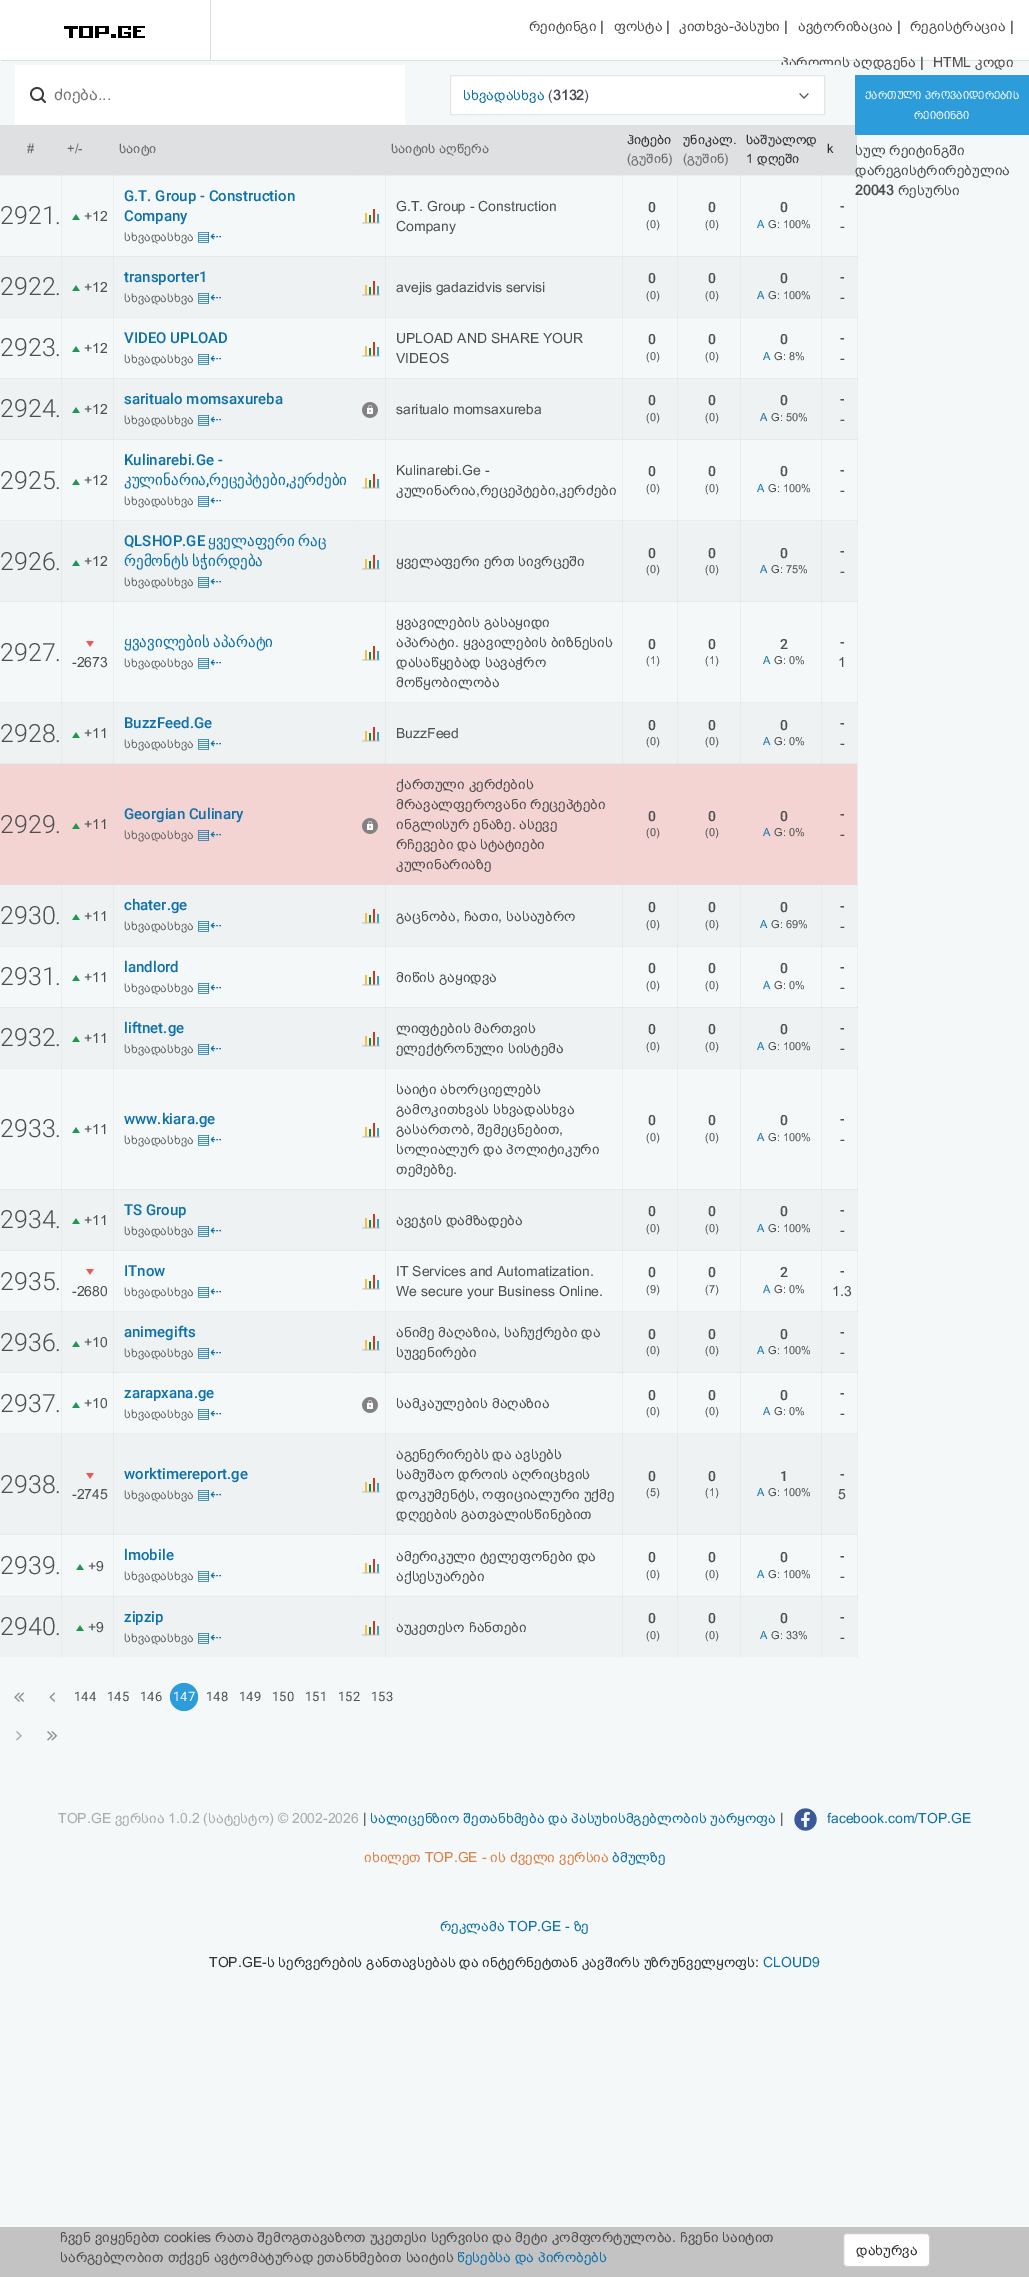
%!PS
<< /PageSize [1029 2277] >> setpagedevice
/m/moveto load def
/l/rlineto load def
/z/closepath load def
/f/fill load def
/s/stroke load def
/q/gsave load def
/Q_/grestore load def
/C { dup -16 bitshift 255 div exch dup -8 bitshift 255 and 255 div exch 255 and 255 div setrgbcolor } def
/F { [ exch dup neg 0 0 3 -1 roll 0 0 ] selectfont } def
/T { moveto show } def
/R { rectfill } def
/O { newpath 0 360 arc closepath } def
/Q { 5 dict begin { /r /h /w /y /x } { exch def } forall
  x r add y moveto x w add y 2 copy h add r arct x w add y h add x 1 index r arct
  x y h add x y r arct x y 2 copy exch w add exch r arct closepath end } def
/I { 5 dict begin { /h /w /y /x /name } { exch def } forall
  gsave x y translate w h scale
  w h 8 [w 0 0 h 0 0] name (r) file false 3 colorimage grestore end } def
0 2277 translate 1 -1 scale
4 setmiterlimit
16#F4F8F9 C
0 0 1029 2277 R
16#EBEEEE C
61 175 1 82 R
0 175 62 1 R
113 175 1 82 R
61 175 292 1 R
16#E3E4E4 C
61 175 1 1 R
113 175 1 1 R
16#EBEEEE C
385 175 1 82 R
352 175 34 1 R
16#E6E8E8 C
352 175 1 1 R
16#EBEEEE C
622 175 1 82 R
385 175 238 1 R
16#E3E4E4 C
385 175 1 1 R
16#EBEEEE C
677 175 1 82 R
622 175 56 1 R
16#E3E4E4 C
622 175 1 1 R
16#EBEEEE C
740 175 1 82 R
677 175 64 1 R
16#E3E4E4 C
677 175 1 1 R
16#EBEEEE C
821 175 1 82 R
740 175 82 1 R
16#E3E4E4 C
740 175 1 1 R
16#EBEEEE C
857 175 1 1482 R
16#E3E4E4 C
857 256 1 1 R
16#EBEEEE C
61 317 1 62 R
0 317 62 1 R
113 317 1 62 R
61 317 292 1 R
16#E1E1E1 C
61 317 1 1 R
113 317 1 1 R
16#EBEEEE C
385 317 1 62 R
352 317 34 1 R
16#E6E8E8 C
352 317 1 1 R
16#EBEEEE C
622 317 1 62 R
385 317 238 1 R
16#E1E1E1 C
385 317 1 1 R
16#EBEEEE C
677 317 1 62 R
622 317 56 1 R
16#E1E1E1 C
622 317 1 1 R
16#EBEEEE C
740 317 1 62 R
677 317 64 1 R
16#E1E1E1 C
677 317 1 1 R
16#EBEEEE C
821 317 1 62 R
740 317 82 1 R
16#E1E1E1 C
740 317 1 1 R
16#E3E4E4 C
857 378 1 1 R
16#EBEEEE C
61 439 1 82 R
113 439 1 82 R
385 439 1 82 R
622 439 1 82 R
677 439 1 82 R
740 439 1 82 R
821 439 1 82 R
16#E3E4E4 C
857 439 1 1 R
16#EBEEEE C
0 520 822 1 R
16#E1E1E1 C
61 520 1 1 R
113 520 1 1 R
16#E6E8E8 C
352 520 1 1 R
16#E1E1E1 C
385 520 1 1 R
622 520 1 1 R
677 520 1 1 R
740 520 1 1 R
16#EBEEEE C
61 601 1 102 R
113 601 1 102 R
385 601 1 102 R
622 601 1 102 R
677 601 1 102 R
740 601 1 102 R
821 601 1 102 R
16#E3E4E4 C
857 601 1 1 R
16#EBEEEE C
0 702 822 1 R
16#E1E1E1 C
61 702 1 1 R
113 702 1 1 R
16#E6E8E8 C
352 702 1 1 R
16#E1E1E1 C
385 702 1 1 R
622 702 1 1 R
677 702 1 1 R
740 702 1 1 R
16#E3E4E4 C
857 763 1 1 R
857 884 1 1 R
16#EBEEEE C
61 946 1 62 R
0 946 62 1 R
113 946 1 62 R
61 946 292 1 R
16#E1E1E1 C
61 946 1 1 R
113 946 1 1 R
16#EBEEEE C
385 946 1 62 R
352 946 34 1 R
16#E6E8E8 C
352 946 1 1 R
16#EBEEEE C
622 946 1 62 R
385 946 238 1 R
16#E1E1E1 C
385 946 1 1 R
16#EBEEEE C
677 946 1 62 R
622 946 56 1 R
16#E1E1E1 C
622 946 1 1 R
16#EBEEEE C
740 946 1 62 R
677 946 64 1 R
16#E1E1E1 C
677 946 1 1 R
16#EBEEEE C
821 946 1 62 R
740 946 82 1 R
16#E1E1E1 C
740 946 1 1 R
16#E3E4E4 C
857 1007 1 1 R
16#EBEEEE C
61 1068 1 122 R
0 1068 62 1 R
113 1068 1 122 R
61 1068 292 1 R
16#E1E1E1 C
61 1068 1 1 R
113 1068 1 1 R
16#EBEEEE C
385 1068 1 122 R
352 1068 34 1 R
16#E6E8E8 C
352 1068 1 1 R
16#EBEEEE C
622 1068 1 122 R
385 1068 238 1 R
16#E1E1E1 C
385 1068 1 1 R
16#EBEEEE C
677 1068 1 122 R
622 1068 56 1 R
16#E1E1E1 C
622 1068 1 1 R
16#EBEEEE C
740 1068 1 122 R
677 1068 64 1 R
16#E1E1E1 C
677 1068 1 1 R
16#EBEEEE C
821 1068 1 122 R
740 1068 82 1 R
16#E1E1E1 C
740 1068 1 1 R
16#E3E4E4 C
857 1189 1 1 R
16#EBEEEE C
61 1250 1 62 R
113 1250 1 62 R
385 1250 1 62 R
622 1250 1 62 R
677 1250 1 62 R
740 1250 1 62 R
821 1250 1 62 R
16#E3E4E4 C
857 1250 1 1 R
16#EBEEEE C
0 1311 822 1 R
16#E1E1E1 C
61 1311 1 1 R
113 1311 1 1 R
16#E6E8E8 C
352 1311 1 1 R
16#E1E1E1 C
385 1311 1 1 R
622 1311 1 1 R
677 1311 1 1 R
740 1311 1 1 R
16#EBEEEE C
61 1372 1 62 R
113 1372 1 62 R
385 1372 1 62 R
622 1372 1 62 R
677 1372 1 62 R
740 1372 1 62 R
821 1372 1 62 R
16#E3E4E4 C
857 1372 1 1 R
16#EBEEEE C
0 1433 822 1 R
16#E1E1E1 C
61 1433 1 1 R
113 1433 1 1 R
16#E6E8E8 C
352 1433 1 1 R
16#E1E1E1 C
385 1433 1 1 R
622 1433 1 1 R
677 1433 1 1 R
740 1433 1 1 R
16#EBEEEE C
61 1534 1 63 R
113 1534 1 63 R
385 1534 1 63 R
622 1534 1 63 R
677 1534 1 63 R
740 1534 1 63 R
821 1534 1 63 R
16#E3E4E4 C
857 1534 1 1 R
857 1596 1 1 R
16#DCDFE0 C
1 60 m 0 1 l 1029 0 l 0 -60 l -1 0 l 0 59 l z f
16#FFFFFF C
0 0 1029 60 R
16#DBDFE0 C
210 0 1 60 R
(1.rgb) 64 26 81 12 I
/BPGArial-Regular 14 F
16#4F4F4F C
(რეიტინგი) 529 31 T
/LiberationSans-Regular 14 F
16#333333 C
(|) 600 31 T
/BPGArial-Regular 14 F
16#4F4F4F C
(ფოსტა) 614 31 T
/LiberationSans-Regular 14 F
16#333333 C
(|) 666 31 T
/BPGArial-Regular 14 F
16#4F4F4F C
(კითხვა-პასუხი) 679 31 T
/LiberationSans-Regular 14 F
16#333333 C
(|) 784 31 T
/BPGArial-Regular 14 F
16#4F4F4F C
(ავტორიზაცია) 798 31 T
/LiberationSans-Regular 14 F
16#333333 C
(|) 897 31 T
/BPGArial-Regular 14 F
16#4F4F4F C
(რეგისტრაცია) 910 31 T
/LiberationSans-Regular 14 F
16#333333 C
(|) 1010 31 T
/BPGArial-Regular 14 F
16#4F4F4F C
(პაროლის აღდგენა) 781 67 T
/LiberationSans-Regular 14 F
16#333333 C
(|) 920 67 T
/BPGArial-Regular 14 F
16#4F4F4F C
(HTML კოდი) 933 67 T
16#F4F8F9 C
782 65 58 5 R
16#FFFFFF C
15 65 390 60 R
(2.rgb) 30 87 16 16 I
/BPGArial-Regular 16 F
16#757575 C
(ძიება...) 54 100 T
16#FFFFFF C
450.5 75.5 m 374 0 l 0 39 l -374 0 l z q f Q_
16#E5E5E5 C
s
/BPGArial-Regular 14 F
16#0E71A9 C
(სხვადასხვა) 463 100 T
16#494C59 C
(\() 548 100 T
/BPGArial-Bold 14 F
(3132) 553 100 T
/BPGArial-Regular 14 F
(\)) 584 100 T
(3.rgb) 799 93 10 6 I
16#DEE0E1 C
0 125 857 50 R
/BPGArial-Regular 13 F
16#666666 C
(#) 27 153 T
(+/-) 67 153 T
(საიტი) 119 153 T
(საიტის აღწერა) 391 153 T
16#2D2D2D C
(ჰიტები) 627 144 T
16#666666 C
(\(გუშინ\)) 627 163 T
16#2D2D2D C
(უნიკალ.) 683 144 T
16#666666 C
(\(გუშინ\)) 683 163 T
16#2D2D2D C
(საშუალოდ) 746 144 T
(1 დღეში) 746 163 T
(k) 827 153 T
/Roboto-Light 25 F
16#4F4F4F C
(2921.) 0 224 T
(4.rgb) 72 214 8 6 I
/BPGArial-Regular 14 F
(+12) 84 221 T
/Roboto-Medium 15 F
16#0E71A9 C
(G.T. Group - Construction) 124 201 T
(Company) 124 221 T
/BPGArial-Regular 12 F
16#666666 C
(სხვადასხვა) 124 241 T
/DejaVuSans-Regular 14 F
16#0E71A9 C
(▤⇠) 197 241 T
(5.rgb) 362 209 18 15 I
/BPGArial-Regular 14 F
16#4F4F4F C
(G.T. Group - Construction) 396 211 T
(Company) 396 231 T
/Roboto-Medium 14 F
(0) 648 212 T
/BPGArial-Regular 11 F
(\(0\)) 646 228 T
/Roboto-Medium 14 F
(0) 708 212 T
/BPGArial-Regular 11 F
(\(0\)) 705 228 T
/Roboto-Medium 14 F
(0) 780 212 T
/BPGArial-Regular 11 F
16#0E71A9 C
(A) 757 228 T
16#4F4F4F C
(G: 100%) 768 228 T
16#EBEEEE C
821 175 37 1 R
16#E3E4E4 C
821 175 1 1 R
16#E6E8E8 C
857 175 1 1 R
/Roboto-Medium 14 F
16#4F4F4F C
(-) 840 211 T
/BPGArial-Regular 14 F
(-) 840 231 T
16#EEF2F3 C
0 257 857 60 R
16#E8EAEB C
61 256 1 61 R
0 256 62 1 R
113 256 1 61 R
61 256 292 1 R
16#DFE0E1 C
61 256 1 1 R
113 256 1 1 R
16#E8EAEB C
385 256 1 61 R
352 256 34 1 R
16#E4E5E6 C
352 256 1 1 R
16#E8EAEB C
622 256 1 61 R
385 256 238 1 R
16#DFE0E1 C
385 256 1 1 R
16#E8EAEB C
677 256 1 61 R
622 256 56 1 R
16#DFE0E1 C
622 256 1 1 R
16#E8EAEB C
740 256 1 61 R
677 256 64 1 R
16#DFE0E1 C
677 256 1 1 R
16#E8EAEB C
821 256 1 61 R
740 256 117 1 R
16#DFE0E1 C
740 256 1 1 R
821 256 1 1 R
/Roboto-Light 25 F
16#4F4F4F C
(2922.) 0 295 T
(6.rgb) 72 285 8 6 I
/BPGArial-Regular 14 F
(+12) 84 292 T
/Roboto-Medium 15 F
16#0E71A9 C
(transporter1) 124 282 T
/BPGArial-Regular 12 F
16#666666 C
(სხვადასხვა) 124 302 T
/DejaVuSans-Regular 14 F
16#0E71A9 C
(▤⇠) 197 302 T
(7.rgb) 362 281 18 15 I
/BPGArial-Regular 14 F
16#4F4F4F C
(avejis gadazidvis servisi) 396 292 T
/Roboto-Medium 14 F
(0) 648 283 T
/BPGArial-Regular 11 F
(\(0\)) 646 299 T
/Roboto-Medium 14 F
(0) 708 283 T
/BPGArial-Regular 11 F
(\(0\)) 705 299 T
/Roboto-Medium 14 F
(0) 780 283 T
/BPGArial-Regular 11 F
16#0E71A9 C
(A) 757 299 T
16#4F4F4F C
(G: 100%) 768 299 T
/Roboto-Medium 14 F
(-) 840 282 T
/BPGArial-Regular 14 F
(-) 840 302 T
/Roboto-Light 25 F
(2923.) 0 356 T
(4.rgb) 72 346 8 6 I
/BPGArial-Regular 14 F
(+12) 84 353 T
/Roboto-Medium 15 F
16#0E71A9 C
(VIDEO UPLOAD) 124 343 T
/BPGArial-Regular 12 F
16#666666 C
(სხვადასხვა) 124 363 T
/DejaVuSans-Regular 14 F
16#0E71A9 C
(▤⇠) 197 363 T
(5.rgb) 362 342 18 15 I
/BPGArial-Regular 14 F
16#4F4F4F C
(UPLOAD AND SHARE YOUR) 396 343 T
(VIDEOS) 396 363 T
/Roboto-Medium 14 F
(0) 648 344 T
/BPGArial-Regular 11 F
(\(0\)) 646 360 T
/Roboto-Medium 14 F
(0) 708 344 T
/BPGArial-Regular 11 F
(\(0\)) 705 360 T
/Roboto-Medium 14 F
(0) 780 344 T
/BPGArial-Regular 11 F
16#0E71A9 C
(A) 763 360 T
16#4F4F4F C
(G: 8%) 774 360 T
16#EBEEEE C
821 317 37 1 R
16#E1E1E1 C
821 317 1 1 R
16#E3E4E4 C
857 317 1 1 R
/Roboto-Medium 14 F
16#4F4F4F C
(-) 840 343 T
/BPGArial-Regular 14 F
(-) 840 363 T
16#EEF2F3 C
0 379 857 60 R
16#E8EAEB C
61 378 1 62 R
0 378 62 1 R
113 378 1 62 R
61 378 292 1 R
16#DFE0E1 C
61 378 1 1 R
113 378 1 1 R
16#E8EAEB C
385 378 1 62 R
352 378 34 1 R
16#E4E5E6 C
352 378 1 1 R
16#E8EAEB C
622 378 1 62 R
385 378 238 1 R
16#DFE0E1 C
385 378 1 1 R
16#E8EAEB C
677 378 1 62 R
622 378 56 1 R
16#DFE0E1 C
622 378 1 1 R
16#E8EAEB C
740 378 1 62 R
677 378 64 1 R
16#DFE0E1 C
677 378 1 1 R
16#E8EAEB C
821 378 1 62 R
740 378 117 1 R
16#DFE0E1 C
740 378 1 1 R
821 378 1 1 R
16#E8EAEB C
0 439 857 1 R
16#DFE0E1 C
61 439 1 1 R
113 439 1 1 R
16#E4E5E6 C
352 439 1 1 R
16#DFE0E1 C
385 439 1 1 R
622 439 1 1 R
677 439 1 1 R
740 439 1 1 R
821 439 1 1 R
/Roboto-Light 25 F
16#4F4F4F C
(2924.) 0 417 T
(6.rgb) 72 407 8 6 I
/BPGArial-Regular 14 F
(+12) 84 414 T
/Roboto-Medium 15 F
16#0E71A9 C
(saritualo momsaxureba) 124 404 T
/BPGArial-Regular 12 F
16#666666 C
(სხვადასხვა) 124 424 T
/DejaVuSans-Regular 14 F
16#0E71A9 C
(▤⇠) 197 424 T
(8.rgb) 362 402 16 16 I
/BPGArial-Regular 14 F
16#4F4F4F C
(saritualo momsaxureba) 396 414 T
/Roboto-Medium 14 F
(0) 648 405 T
/BPGArial-Regular 11 F
(\(0\)) 646 421 T
/Roboto-Medium 14 F
(0) 708 405 T
/BPGArial-Regular 11 F
(\(0\)) 705 421 T
/Roboto-Medium 14 F
(0) 780 405 T
/BPGArial-Regular 11 F
16#0E71A9 C
(A) 760 421 T
16#4F4F4F C
(G: 50%) 771 421 T
/Roboto-Medium 14 F
(-) 840 404 T
/BPGArial-Regular 14 F
(-) 840 424 T
/Roboto-Light 25 F
(2925.) 0 489 T
(4.rgb) 72 479 8 6 I
/BPGArial-Regular 14 F
(+12) 84 485 T
/Roboto-Medium 15 F
16#0E71A9 C
(Kulinarebi.Ge -) 124 465 T
/DejaVuSans-Regular 15 F
(კულინარია) 124 485 T
/Roboto-Medium 15 F
(,) 206 485 T
/DejaVuSans-Regular 15 F
(რეცეპტები) 209 485 T
/Roboto-Medium 15 F
(,) 286 485 T
/DejaVuSans-Regular 15 F
(კერძები) 289 485 T
/BPGArial-Regular 12 F
16#666666 C
(სხვადასხვა) 124 505 T
/DejaVuSans-Regular 14 F
16#0E71A9 C
(▤⇠) 197 505 T
(5.rgb) 362 474 18 15 I
/BPGArial-Regular 14 F
16#4F4F4F C
(Kulinarebi.Ge -) 396 475 T
(კულინარია,რეცეპტები,კერძები) 396 495 T
/Roboto-Medium 14 F
(0) 648 476 T
/BPGArial-Regular 11 F
(\(0\)) 646 492 T
/Roboto-Medium 14 F
(0) 708 476 T
/BPGArial-Regular 11 F
(\(0\)) 705 492 T
/Roboto-Medium 14 F
(0) 780 476 T
/BPGArial-Regular 11 F
16#0E71A9 C
(A) 757 492 T
16#4F4F4F C
(G: 100%) 768 492 T
/Roboto-Medium 14 F
(-) 840 475 T
/BPGArial-Regular 14 F
(-) 840 495 T
16#EEF2F2 C
0 521 857 80 R
16#E8EAEA C
61 521 1 81 R
113 521 1 81 R
385 521 1 81 R
622 521 1 81 R
677 521 1 81 R
740 521 1 81 R
821 521 1 81 R
0 601 857 1 R
16#DFE0E0 C
61 601 1 1 R
113 601 1 1 R
16#E4E5E5 C
352 601 1 1 R
16#DFE0E0 C
385 601 1 1 R
622 601 1 1 R
677 601 1 1 R
740 601 1 1 R
821 601 1 1 R
/Roboto-Light 25 F
16#4F4F4F C
(2926.) 0 570 T
(9.rgb) 72 560 8 6 I
/BPGArial-Regular 14 F
(+12) 84 566 T
/Roboto-Medium 15 F
16#0E71A9 C
(QLSHOP.GE) 124 546 T
/DejaVuSans-Regular 15 F
208 546 m -1 0 32 (ყველაფერი რაც) widthshow
124 566 m -1 0 32 (რემონტს სჭირდება) widthshow
/BPGArial-Regular 12 F
16#666666 C
(სხვადასხვა) 124 586 T
/DejaVuSans-Regular 14 F
16#0E71A9 C
(▤⇠) 197 586 T
(10.rgb) 362 555 18 15 I
/BPGArial-Regular 14 F
16#4F4F4F C
(ყველაფერი ერთ სივრცეში) 396 566 T
/Roboto-Medium 14 F
(0) 648 558 T
/BPGArial-Regular 11 F
(\(0\)) 646 573 T
/Roboto-Medium 14 F
(0) 708 558 T
/BPGArial-Regular 11 F
(\(0\)) 705 573 T
/Roboto-Medium 14 F
(0) 780 558 T
/BPGArial-Regular 11 F
16#0E71A9 C
(A) 760 573 T
16#4F4F4F C
(G: 75%) 771 573 T
16#EBEEEE C
821 520 37 1 R
16#E1E1E1 C
821 520 1 1 R
16#E3E4E4 C
857 520 1 1 R
/Roboto-Medium 14 F
16#4F4F4F C
(-) 840 556 T
/BPGArial-Regular 14 F
(-) 840 576 T
/Roboto-Light 25 F
(2927.) 0 661 T
(11.rgb) 86 641 8 6 I
/BPGArial-Regular 14 F
(-2673) 72 667 T
/DejaVuSans-Regular 15 F
16#0E71A9 C
124 647 m -1 0 32 (ყვავილების აპარატი) widthshow
/BPGArial-Regular 12 F
16#666666 C
(სხვადასხვა) 124 667 T
/DejaVuSans-Regular 14 F
16#0E71A9 C
(▤⇠) 197 667 T
(5.rgb) 362 646 18 15 I
/BPGArial-Regular 14 F
16#4F4F4F C
(ყვავილების გასაყიდი) 396 627 T
(აპარატი. ყვავილების ბიზნესის) 396 647 T
(დასაწყებად სავაჭრო) 396 667 T
(მოწყობილობა) 396 687 T
/Roboto-Medium 14 F
(0) 648 649 T
/BPGArial-Regular 11 F
(\(1\)) 646 664 T
/Roboto-Medium 14 F
(0) 708 649 T
/BPGArial-Regular 11 F
(\(1\)) 705 664 T
/Roboto-Medium 14 F
(2) 780 649 T
/BPGArial-Regular 11 F
16#0E71A9 C
(A) 763 664 T
16#4F4F4F C
(G: 0%) 774 664 T
/Roboto-Medium 14 F
(-) 840 647 T
/BPGArial-Regular 14 F
(1) 838 667 T
16#EEF2F3 C
0 703 857 60 R
16#E8EAEB C
61 703 1 61 R
113 703 1 61 R
385 703 1 61 R
622 703 1 61 R
677 703 1 61 R
740 703 1 61 R
821 703 1 61 R
0 763 857 1 R
16#DFE0E1 C
61 763 1 1 R
113 763 1 1 R
16#E4E5E6 C
352 763 1 1 R
16#DFE0E1 C
385 763 1 1 R
622 763 1 1 R
677 763 1 1 R
740 763 1 1 R
821 763 1 1 R
/Roboto-Light 25 F
16#4F4F4F C
(2928.) 0 742 T
(6.rgb) 72 732 8 6 I
/BPGArial-Regular 14 F
(+11) 84 738 T
/Roboto-Medium 15 F
16#0E71A9 C
(BuzzFeed.Ge) 124 728 T
/BPGArial-Regular 12 F
16#666666 C
(სხვადასხვა) 124 748 T
/DejaVuSans-Regular 14 F
16#0E71A9 C
(▤⇠) 197 748 T
(7.rgb) 362 727 18 15 I
/BPGArial-Regular 14 F
16#4F4F4F C
(BuzzFeed) 396 738 T
/Roboto-Medium 14 F
(0) 648 730 T
/BPGArial-Regular 11 F
(\(0\)) 646 745 T
/Roboto-Medium 14 F
(0) 708 730 T
/BPGArial-Regular 11 F
(\(0\)) 705 745 T
/Roboto-Medium 14 F
(0) 780 730 T
/BPGArial-Regular 11 F
16#0E71A9 C
(A) 763 745 T
16#4F4F4F C
(G: 0%) 774 745 T
16#EBEEEE C
821 702 37 1 R
16#E1E1E1 C
821 702 1 1 R
16#E3E4E4 C
857 702 1 1 R
/Roboto-Medium 14 F
16#4F4F4F C
(-) 840 728 T
/BPGArial-Regular 14 F
(-) 840 748 T
16#F4D3D3 C
0 764 857 120 R
16#EBD7D7 C
61 764 1 121 R
113 764 1 121 R
385 764 1 121 R
622 764 1 121 R
677 764 1 121 R
740 764 1 121 R
821 764 1 121 R
0 884 857 1 R
16#E1DCDC C
61 884 1 1 R
113 884 1 1 R
16#E6D9D9 C
352 884 1 1 R
16#E1DCDC C
385 884 1 1 R
622 884 1 1 R
677 884 1 1 R
740 884 1 1 R
821 884 1 1 R
/Roboto-Light 25 F
16#4F4F4F C
(2929.) 0 833 T
(12.rgb) 72 823 8 6 I
/BPGArial-Regular 14 F
(+11) 84 829 T
/Roboto-Medium 15 F
16#0E71A9 C
(Georgian Culinary) 124 819 T
/BPGArial-Regular 12 F
16#666666 C
(სხვადასხვა) 124 839 T
/DejaVuSans-Regular 14 F
16#0E71A9 C
(▤⇠) 197 839 T
(13.rgb) 362 818 16 16 I
/BPGArial-Regular 14 F
16#4F4F4F C
(ქართული კერძების) 396 789 T
(მრავალფეროვანი რეცეპტები) 396 809 T
(ინგლისურ ენაზე. ასევე) 396 829 T
(რჩევები და სტატიები) 396 849 T
(კულინარიაზე) 396 869 T
/Roboto-Medium 14 F
(0) 648 821 T
/BPGArial-Regular 11 F
(\(0\)) 646 836 T
/Roboto-Medium 14 F
(0) 708 821 T
/BPGArial-Regular 11 F
(\(0\)) 705 836 T
/Roboto-Medium 14 F
(0) 780 821 T
/BPGArial-Regular 11 F
16#0E71A9 C
(A) 763 836 T
16#4F4F4F C
(G: 0%) 774 836 T
/Roboto-Medium 14 F
(-) 840 819 T
/BPGArial-Regular 14 F
(-) 840 839 T
16#EEF2F3 C
0 885 857 61 R
16#E8EAEB C
61 885 1 61 R
113 885 1 61 R
385 885 1 61 R
622 885 1 61 R
677 885 1 61 R
740 885 1 61 R
821 885 1 61 R
/Roboto-Light 25 F
16#4F4F4F C
(2930.) 0 924 T
(6.rgb) 72 914 8 6 I
/BPGArial-Regular 14 F
(+11) 84 921 T
/Roboto-Medium 15 F
16#0E71A9 C
(chater.ge) 124 910 T
/BPGArial-Regular 12 F
16#666666 C
(სხვადასხვა) 124 930 T
/DejaVuSans-Regular 14 F
16#0E71A9 C
(▤⇠) 197 930 T
(7.rgb) 362 909 18 15 I
/BPGArial-Regular 14 F
16#4F4F4F C
(გაცნობა, ჩათი, სასაუბრო) 396 921 T
/Roboto-Medium 14 F
(0) 648 912 T
/BPGArial-Regular 11 F
(\(0\)) 646 928 T
/Roboto-Medium 14 F
(0) 708 912 T
/BPGArial-Regular 11 F
(\(0\)) 705 928 T
/Roboto-Medium 14 F
(0) 780 912 T
/BPGArial-Regular 11 F
16#0E71A9 C
(A) 760 928 T
16#4F4F4F C
(G: 69%) 771 928 T
/Roboto-Medium 14 F
(-) 840 911 T
/BPGArial-Regular 14 F
(-) 840 931 T
/Roboto-Light 25 F
(2931.) 0 985 T
(4.rgb) 72 975 8 6 I
/BPGArial-Regular 14 F
(+11) 84 982 T
/Roboto-Medium 15 F
16#0E71A9 C
(landlord) 124 972 T
/BPGArial-Regular 12 F
16#666666 C
(სხვადასხვა) 124 992 T
/DejaVuSans-Regular 14 F
16#0E71A9 C
(▤⇠) 197 992 T
(5.rgb) 362 971 18 15 I
/BPGArial-Regular 14 F
16#4F4F4F C
(მიწის გაყიდვა) 396 982 T
/Roboto-Medium 14 F
(0) 648 973 T
/BPGArial-Regular 11 F
(\(0\)) 646 989 T
/Roboto-Medium 14 F
(0) 708 973 T
/BPGArial-Regular 11 F
(\(0\)) 705 989 T
/Roboto-Medium 14 F
(0) 780 973 T
/BPGArial-Regular 11 F
16#0E71A9 C
(A) 763 989 T
16#4F4F4F C
(G: 0%) 774 989 T
16#EBEEEE C
821 946 37 1 R
16#E1E1E1 C
821 946 1 1 R
16#E3E4E4 C
857 946 1 1 R
/Roboto-Medium 14 F
16#4F4F4F C
(-) 840 972 T
/BPGArial-Regular 14 F
(-) 840 992 T
16#EEF2F3 C
0 1008 857 60 R
16#E8EAEB C
61 1007 1 61 R
0 1007 62 1 R
113 1007 1 61 R
61 1007 292 1 R
16#DFE0E1 C
61 1007 1 1 R
113 1007 1 1 R
16#E8EAEB C
385 1007 1 61 R
352 1007 34 1 R
16#E4E5E6 C
352 1007 1 1 R
16#E8EAEB C
622 1007 1 61 R
385 1007 238 1 R
16#DFE0E1 C
385 1007 1 1 R
16#E8EAEB C
677 1007 1 61 R
622 1007 56 1 R
16#DFE0E1 C
622 1007 1 1 R
16#E8EAEB C
740 1007 1 61 R
677 1007 64 1 R
16#DFE0E1 C
677 1007 1 1 R
16#E8EAEB C
821 1007 1 61 R
740 1007 117 1 R
16#DFE0E1 C
740 1007 1 1 R
821 1007 1 1 R
/Roboto-Light 25 F
16#4F4F4F C
(2932.) 0 1046 T
(6.rgb) 72 1036 8 6 I
/BPGArial-Regular 14 F
(+11) 84 1043 T
/Roboto-Medium 15 F
16#0E71A9 C
(liftnet.ge) 124 1033 T
/BPGArial-Regular 12 F
16#666666 C
(სხვადასხვა) 124 1053 T
/DejaVuSans-Regular 14 F
16#0E71A9 C
(▤⇠) 197 1053 T
(7.rgb) 362 1032 18 15 I
/BPGArial-Regular 14 F
16#4F4F4F C
(ლიფტების მართვის) 396 1033 T
(ელექტრონული სისტემა) 396 1053 T
/Roboto-Medium 14 F
(0) 648 1034 T
/BPGArial-Regular 11 F
(\(0\)) 646 1050 T
/Roboto-Medium 14 F
(0) 708 1034 T
/BPGArial-Regular 11 F
(\(0\)) 705 1050 T
/Roboto-Medium 14 F
(0) 780 1034 T
/BPGArial-Regular 11 F
16#0E71A9 C
(A) 757 1050 T
16#4F4F4F C
(G: 100%) 768 1050 T
/Roboto-Medium 14 F
(-) 840 1033 T
/BPGArial-Regular 14 F
(-) 840 1053 T
/Roboto-Light 25 F
(2933.) 0 1137 T
(4.rgb) 72 1127 8 6 I
/BPGArial-Regular 14 F
(+11) 84 1134 T
/Roboto-Medium 15 F
16#0E71A9 C
(www.kiara.ge) 124 1124 T
/BPGArial-Regular 12 F
16#666666 C
(სხვადასხვა) 124 1144 T
/DejaVuSans-Regular 14 F
16#0E71A9 C
(▤⇠) 197 1144 T
(5.rgb) 362 1123 18 15 I
/BPGArial-Regular 14 F
16#4F4F4F C
(საიტი ახორციელებს) 396 1094 T
(გამოკითხვას სხვადასხვა) 396 1114 T
(გასართობ, შემეცნებით,) 396 1134 T
(სოლიალურ და პოლიტიკური) 396 1154 T
(თემებზე.) 396 1174 T
/Roboto-Medium 14 F
(0) 648 1125 T
/BPGArial-Regular 11 F
(\(0\)) 646 1141 T
/Roboto-Medium 14 F
(0) 708 1125 T
/BPGArial-Regular 11 F
(\(0\)) 705 1141 T
/Roboto-Medium 14 F
(0) 780 1125 T
/BPGArial-Regular 11 F
16#0E71A9 C
(A) 757 1141 T
16#4F4F4F C
(G: 100%) 768 1141 T
16#EBEEEE C
821 1068 37 1 R
16#E1E1E1 C
821 1068 1 1 R
16#E3E4E4 C
857 1068 1 1 R
/Roboto-Medium 14 F
16#4F4F4F C
(-) 840 1124 T
/BPGArial-Regular 14 F
(-) 840 1144 T
16#EEF2F3 C
0 1190 857 60 R
16#E8EAEB C
61 1189 1 62 R
0 1189 62 1 R
113 1189 1 62 R
61 1189 292 1 R
16#DFE0E1 C
61 1189 1 1 R
113 1189 1 1 R
16#E8EAEB C
385 1189 1 62 R
352 1189 34 1 R
16#E4E5E6 C
352 1189 1 1 R
16#E8EAEB C
622 1189 1 62 R
385 1189 238 1 R
16#DFE0E1 C
385 1189 1 1 R
16#E8EAEB C
677 1189 1 62 R
622 1189 56 1 R
16#DFE0E1 C
622 1189 1 1 R
16#E8EAEB C
740 1189 1 62 R
677 1189 64 1 R
16#DFE0E1 C
677 1189 1 1 R
16#E8EAEB C
821 1189 1 62 R
740 1189 117 1 R
16#DFE0E1 C
740 1189 1 1 R
821 1189 1 1 R
16#E8EAEB C
0 1250 857 1 R
16#DFE0E1 C
61 1250 1 1 R
113 1250 1 1 R
16#E4E5E6 C
352 1250 1 1 R
16#DFE0E1 C
385 1250 1 1 R
622 1250 1 1 R
677 1250 1 1 R
740 1250 1 1 R
821 1250 1 1 R
/Roboto-Light 25 F
16#4F4F4F C
(2934.) 0 1228 T
(6.rgb) 72 1218 8 6 I
/BPGArial-Regular 14 F
(+11) 84 1225 T
/Roboto-Medium 15 F
16#0E71A9 C
(TS Group) 124 1215 T
/BPGArial-Regular 12 F
16#666666 C
(სხვადასხვა) 124 1235 T
/DejaVuSans-Regular 14 F
16#0E71A9 C
(▤⇠) 197 1235 T
(7.rgb) 362 1214 18 15 I
/BPGArial-Regular 14 F
16#4F4F4F C
(ავეჯის დამზადება) 396 1225 T
/Roboto-Medium 14 F
(0) 648 1216 T
/BPGArial-Regular 11 F
(\(0\)) 646 1232 T
/Roboto-Medium 14 F
(0) 708 1216 T
/BPGArial-Regular 11 F
(\(0\)) 705 1232 T
/Roboto-Medium 14 F
(0) 780 1216 T
/BPGArial-Regular 11 F
16#0E71A9 C
(A) 757 1232 T
16#4F4F4F C
(G: 100%) 768 1232 T
/Roboto-Medium 14 F
(-) 840 1215 T
/BPGArial-Regular 14 F
(-) 840 1235 T
/Roboto-Light 25 F
(2935.) 0 1290 T
(11.rgb) 86 1269 8 6 I
/BPGArial-Regular 14 F
(-2680) 72 1296 T
/Roboto-Medium 15 F
16#0E71A9 C
(ITnow) 124 1276 T
/BPGArial-Regular 12 F
16#666666 C
(სხვადასხვა) 124 1296 T
/DejaVuSans-Regular 14 F
16#0E71A9 C
(▤⇠) 197 1296 T
(5.rgb) 362 1275 18 15 I
/BPGArial-Regular 14 F
16#4F4F4F C
(IT Services and Automatization.) 396 1276 T
(We secure your Business Online.) 396 1296 T
/Roboto-Medium 14 F
(0) 648 1277 T
/BPGArial-Regular 11 F
(\(9\)) 646 1293 T
/Roboto-Medium 14 F
(0) 708 1277 T
/BPGArial-Regular 11 F
(\(7\)) 705 1293 T
/Roboto-Medium 14 F
(2) 780 1277 T
/BPGArial-Regular 11 F
16#0E71A9 C
(A) 763 1293 T
16#4F4F4F C
(G: 0%) 774 1293 T
/Roboto-Medium 14 F
(-) 840 1276 T
/BPGArial-Regular 14 F
(1.3) 832 1296 T
16#EEF2F3 C
0 1312 857 60 R
16#E8EAEB C
61 1312 1 61 R
113 1312 1 61 R
385 1312 1 61 R
622 1312 1 61 R
677 1312 1 61 R
740 1312 1 61 R
821 1312 1 61 R
0 1372 857 1 R
16#DFE0E1 C
61 1372 1 1 R
113 1372 1 1 R
16#E4E5E6 C
352 1372 1 1 R
16#DFE0E1 C
385 1372 1 1 R
622 1372 1 1 R
677 1372 1 1 R
740 1372 1 1 R
821 1372 1 1 R
/Roboto-Light 25 F
16#4F4F4F C
(2936.) 0 1351 T
(6.rgb) 72 1341 8 6 I
/BPGArial-Regular 14 F
(+10) 84 1347 T
/Roboto-Medium 15 F
16#0E71A9 C
(animegifts) 124 1337 T
/BPGArial-Regular 12 F
16#666666 C
(სხვადასხვა) 124 1357 T
/DejaVuSans-Regular 14 F
16#0E71A9 C
(▤⇠) 197 1357 T
(7.rgb) 362 1336 18 15 I
/BPGArial-Regular 14 F
16#4F4F4F C
(ანიმე მაღაზია, საჩუქრები და) 396 1337 T
(სუვენირები) 396 1357 T
/Roboto-Medium 14 F
(0) 648 1339 T
/BPGArial-Regular 11 F
(\(0\)) 646 1354 T
/Roboto-Medium 14 F
(0) 708 1339 T
/BPGArial-Regular 11 F
(\(0\)) 705 1354 T
/Roboto-Medium 14 F
(0) 780 1339 T
/BPGArial-Regular 11 F
16#0E71A9 C
(A) 757 1354 T
16#4F4F4F C
(G: 100%) 768 1354 T
16#EBEEEE C
821 1311 37 1 R
16#E1E1E1 C
821 1311 1 1 R
16#E3E4E4 C
857 1311 1 1 R
/Roboto-Medium 14 F
16#4F4F4F C
(-) 840 1337 T
/BPGArial-Regular 14 F
(-) 840 1357 T
/Roboto-Light 25 F
(2937.) 0 1412 T
(4.rgb) 72 1402 8 6 I
/BPGArial-Regular 14 F
(+10) 84 1408 T
/Roboto-Medium 15 F
16#0E71A9 C
(zarapxana.ge) 124 1398 T
/BPGArial-Regular 12 F
16#666666 C
(სხვადასხვა) 124 1418 T
/DejaVuSans-Regular 14 F
16#0E71A9 C
(▤⇠) 197 1418 T
(14.rgb) 362 1397 16 16 I
/BPGArial-Regular 14 F
16#4F4F4F C
(სამკაულების მაღაზია) 396 1408 T
/Roboto-Medium 14 F
(0) 648 1400 T
/BPGArial-Regular 11 F
(\(0\)) 646 1415 T
/Roboto-Medium 14 F
(0) 708 1400 T
/BPGArial-Regular 11 F
(\(0\)) 705 1415 T
/Roboto-Medium 14 F
(0) 780 1400 T
/BPGArial-Regular 11 F
16#0E71A9 C
(A) 763 1415 T
16#4F4F4F C
(G: 0%) 774 1415 T
/Roboto-Medium 14 F
(-) 840 1398 T
/BPGArial-Regular 14 F
(-) 840 1418 T
16#EEF2F2 C
0 1434 857 100 R
16#E8EAEA C
61 1434 1 101 R
113 1434 1 101 R
385 1434 1 101 R
622 1434 1 101 R
677 1434 1 101 R
740 1434 1 101 R
821 1434 1 101 R
0 1534 857 1 R
16#DFE0E0 C
61 1534 1 1 R
113 1534 1 1 R
16#E4E5E5 C
352 1534 1 1 R
16#DFE0E0 C
385 1534 1 1 R
622 1534 1 1 R
677 1534 1 1 R
740 1534 1 1 R
821 1534 1 1 R
/Roboto-Light 25 F
16#4F4F4F C
(2938.) 0 1493 T
(15.rgb) 86 1473 8 6 I
/BPGArial-Regular 14 F
(-2745) 72 1499 T
/Roboto-Medium 15 F
16#0E71A9 C
(worktimereport.ge) 124 1479 T
/BPGArial-Regular 12 F
16#666666 C
(სხვადასხვა) 124 1499 T
/DejaVuSans-Regular 14 F
16#0E71A9 C
(▤⇠) 197 1499 T
(10.rgb) 362 1478 18 15 I
/BPGArial-Regular 14 F
16#4F4F4F C
(აგენერირებს და ავსებს) 396 1459 T
(სამუშაო დროის აღრიცხვის) 396 1479 T
(დოკუმენტს, ოფიციალური უქმე) 396 1499 T
(დღეების გათვალისწინებით) 396 1519 T
/Roboto-Medium 14 F
(0) 648 1481 T
/BPGArial-Regular 11 F
(\(5\)) 646 1496 T
/Roboto-Medium 14 F
(0) 708 1481 T
/BPGArial-Regular 11 F
(\(1\)) 705 1496 T
/Roboto-Medium 14 F
(1) 780 1481 T
/BPGArial-Regular 11 F
16#0E71A9 C
(A) 757 1496 T
16#4F4F4F C
(G: 100%) 768 1496 T
16#EBEEEE C
821 1433 37 1 R
16#E1E1E1 C
821 1433 1 1 R
16#E3E4E4 C
857 1433 1 1 R
/Roboto-Medium 14 F
16#4F4F4F C
(-) 840 1479 T
/BPGArial-Regular 14 F
(5) 838 1499 T
/Roboto-Light 25 F
(2939.) 0 1574 T
(4.rgb) 76 1564 8 6 I
/BPGArial-Regular 14 F
(+9) 88 1571 T
/Roboto-Medium 15 F
16#0E71A9 C
(lmobile) 124 1560 T
/BPGArial-Regular 12 F
16#666666 C
(სხვადასხვა) 124 1580 T
/DejaVuSans-Regular 14 F
16#0E71A9 C
(▤⇠) 197 1580 T
(5.rgb) 362 1559 18 15 I
/BPGArial-Regular 14 F
16#4F4F4F C
(ამერიკული ტელეფონები და) 396 1561 T
(აქსესუარები) 396 1581 T
/Roboto-Medium 14 F
(0) 648 1562 T
/BPGArial-Regular 11 F
(\(0\)) 646 1578 T
/Roboto-Medium 14 F
(0) 708 1562 T
/BPGArial-Regular 11 F
(\(0\)) 705 1578 T
/Roboto-Medium 14 F
(0) 780 1562 T
/BPGArial-Regular 11 F
16#0E71A9 C
(A) 757 1578 T
16#4F4F4F C
(G: 100%) 768 1578 T
/Roboto-Medium 14 F
(-) 840 1561 T
/BPGArial-Regular 14 F
(-) 840 1581 T
16#EEF2F3 C
0 1597 857 60 R
16#E8EAEB C
61 1596 1 61 R
0 1596 62 1 R
113 1596 1 61 R
61 1596 292 1 R
16#DFE0E1 C
61 1596 1 1 R
113 1596 1 1 R
16#E8EAEB C
385 1596 1 61 R
352 1596 34 1 R
16#E4E5E6 C
352 1596 1 1 R
16#E8EAEB C
622 1596 1 61 R
385 1596 238 1 R
16#DFE0E1 C
385 1596 1 1 R
16#E8EAEB C
677 1596 1 61 R
622 1596 56 1 R
16#DFE0E1 C
622 1596 1 1 R
16#E8EAEB C
740 1596 1 61 R
677 1596 64 1 R
16#DFE0E1 C
677 1596 1 1 R
16#E8EAEB C
821 1596 1 61 R
740 1596 117 1 R
16#DFE0E1 C
740 1596 1 1 R
821 1596 1 1 R
/Roboto-Light 25 F
16#4F4F4F C
(2940.) 0 1635 T
(6.rgb) 76 1625 8 6 I
/BPGArial-Regular 14 F
(+9) 88 1632 T
/Roboto-Medium 15 F
16#0E71A9 C
(zipzip) 124 1622 T
/BPGArial-Regular 12 F
16#666666 C
(სხვადასხვა) 124 1642 T
/DejaVuSans-Regular 14 F
16#0E71A9 C
(▤⇠) 197 1642 T
(7.rgb) 362 1621 18 15 I
/BPGArial-Regular 14 F
16#4F4F4F C
(აუკეთესო ჩანთები) 396 1632 T
/Roboto-Medium 14 F
(0) 648 1623 T
/BPGArial-Regular 11 F
(\(0\)) 646 1639 T
/Roboto-Medium 14 F
(0) 708 1623 T
/BPGArial-Regular 11 F
(\(0\)) 705 1639 T
/Roboto-Medium 14 F
(0) 780 1623 T
/BPGArial-Regular 11 F
16#0E71A9 C
(A) 760 1639 T
16#4F4F4F C
(G: 33%) 771 1639 T
/Roboto-Medium 14 F
(-) 840 1622 T
/BPGArial-Regular 14 F
(-) 840 1642 T
(16.rgb) 14 1692 11 10 I
(17.rgb) 49 1692 7 10 I
/Roboto-Regular 13 F
(144) 74 1701 T
(145) 107 1701 T
(146) 140 1701 T
16#2D9CDB C
184 1697 14 O f
16#FFFFFF C
(147) 173 1701 T
16#4F4F4F C
(148) 206 1701 T
(149) 239 1701 T
(150) 272 1701 T
(151) 305 1701 T
(152) 338 1701 T
(153) 371 1701 T
(18.rgb) 16 1731 6 10 I
(19.rgb) 47 1731 11 10 I
16#2D9CDB C
855 75 174 60 R
/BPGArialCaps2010-Regular 11 F
16#FFFFFF C
(ქართული პროვაიდერების) 865 99 T
(რეიტინგი) 914 119 T
/BPGArial-Regular 14 F
16#4F4F4F C
(სულ რეიტინგში) 855 155 T
(დარეგისტრირებულია) 855 175 T
/BPGArial-Bold 14 F
(20043) 855 195 T
/BPGArial-Regular 14 F
(რესურსი) 898 195 T
16#ABABAB C
(TOP.GE ვერსია 1.0.2 \(სატესტო\) © 2002-2026) 58 1823 T
16#333333 C
(|) 363 1823 T
16#0E71A9 C
(სალიცენზიო შეთანხმება და პასუხისმგებლობის უარყოფა) 370 1823 T
16#333333 C
(|) 780 1823 T
(20.rgb) 794 1808 23 23 I
16#0E71A9 C
(facebook.com/TOP.GE) 827 1823 T
16#DE7F46 C
(იხილეთ TOP.GE - ის ძველი ვერსია) 364 1862 T
16#0E71A9 C
(ბმულზე) 612 1862 T
(რეკლამა TOP.GE - ზე) 440 1931 T
16#333333 C
(TOP.GE-ს სერვერების განთავსებას და ინტერნეტთან კავშირს უზრუნველყოფს:) 209 1967 T
16#0E71A9 C
(CLOUD9) 763 1967 T
16#C3C3C3 C
0 2227 1029 50 R
16#4F4F4F C
(ჩვენ ვიყენებთ cookies რათა შემოგთავაზოთ უკეთესი სერვისი და მეტი კომფორტულობა. ჩვენი საიტით) 60 2242 T
(სარგებლობით თქვენ ავტომატურად ეთანხმებით საიტის) 60 2262 T
16#0E71A9 C
(წესებსა და პირობებს) 457 2262 T
16#FFFFFF C
843.5 2233.5 86 33 3.5 Q q f Q_
16#CCCCCC C
s
16#333333 C
(დახურვა) 856 2255 T
showpage
